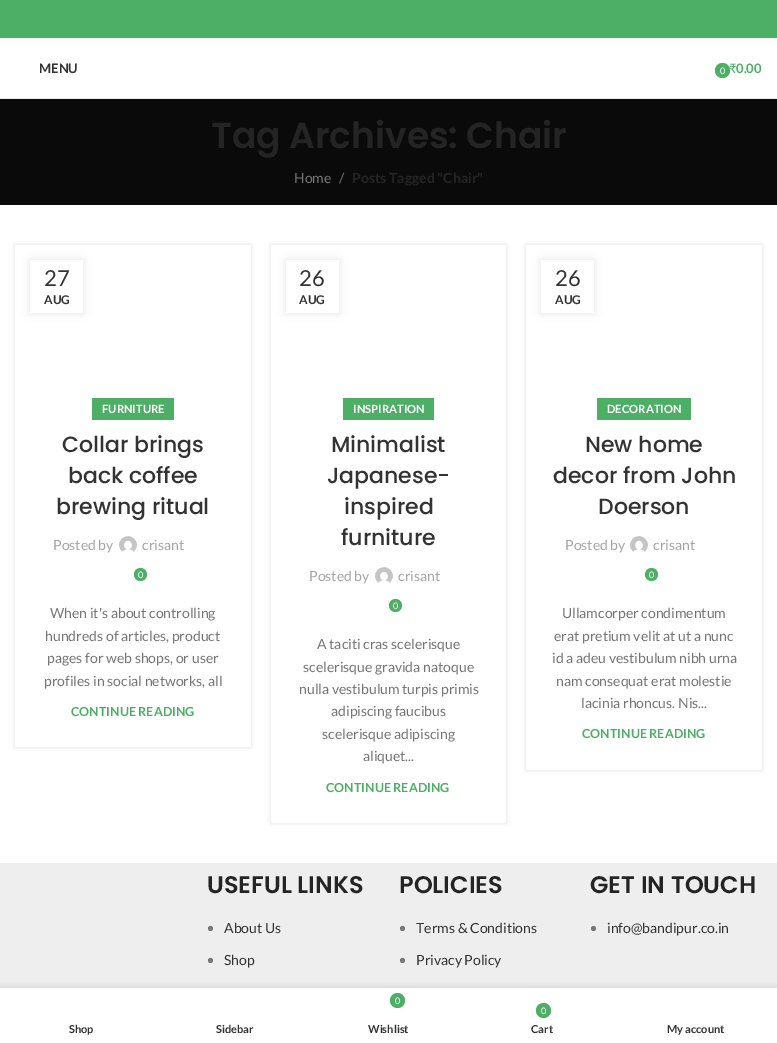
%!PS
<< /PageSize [777 1043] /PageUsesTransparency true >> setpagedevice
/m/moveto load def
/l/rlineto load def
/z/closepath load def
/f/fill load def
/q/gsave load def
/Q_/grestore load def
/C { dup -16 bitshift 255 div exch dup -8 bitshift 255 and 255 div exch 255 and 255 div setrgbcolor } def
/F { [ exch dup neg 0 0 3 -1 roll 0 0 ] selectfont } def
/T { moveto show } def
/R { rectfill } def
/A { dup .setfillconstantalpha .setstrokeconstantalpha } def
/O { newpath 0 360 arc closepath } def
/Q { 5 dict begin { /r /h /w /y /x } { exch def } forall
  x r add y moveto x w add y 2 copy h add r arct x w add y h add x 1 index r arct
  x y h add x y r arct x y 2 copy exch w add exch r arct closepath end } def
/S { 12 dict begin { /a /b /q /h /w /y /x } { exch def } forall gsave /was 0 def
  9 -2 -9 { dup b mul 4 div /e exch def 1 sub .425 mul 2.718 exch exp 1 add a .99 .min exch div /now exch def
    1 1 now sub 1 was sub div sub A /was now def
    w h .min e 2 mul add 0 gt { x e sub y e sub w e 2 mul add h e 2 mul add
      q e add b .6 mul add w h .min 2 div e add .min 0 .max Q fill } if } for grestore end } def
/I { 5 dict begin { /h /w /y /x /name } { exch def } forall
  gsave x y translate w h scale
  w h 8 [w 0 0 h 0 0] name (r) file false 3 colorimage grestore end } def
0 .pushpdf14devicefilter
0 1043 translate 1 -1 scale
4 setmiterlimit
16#FFFFFF C
0 0 777 1043 R
16#4DAE65 C
0 0 777 38 R
16#E8E8E8 C
0 98 777 1 R
/Lato-Bold 13 F
16#333333 C
(MENU) 39 73 T
16#4DAE65 C
722.5 70.5 7.5 O f
/Lato-Regular 9 F
16#FFFFFF C
(0) 720 74 T
/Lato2-Regular 13 F
16#4DAE65 C
(₹) 729 73 T
/Lato-Bold 13 F
(0.00) 736 73 T
16#0A0A0A C
0 99 777 106 R
/Poppins-SemiBold 36 F
16#242424 C
(Tag Archives: Chair) 211 148 T
/Lato-Regular 14 F
16#767676 C
(Home) 294 183 T
(/) 339 183 T
/Lato-Bold 14 F
16#242424 C
(Posts Tagged "Chair") 352 183 T
q
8 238 m 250 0 l 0 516 l -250 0 l z 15 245 m 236 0 l 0 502 l -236 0 l z eoclip newpath
16#000000 C
15 245 236 502 0 2 .12 S
Q_
q
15 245 m 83 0 l 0 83 l -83 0 l z 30 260 m 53 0 l 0 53 l -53 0 l z eoclip newpath
16#000000 C
30 260 53 53 0 4.5 .1 S
Q_
/Lato-Regular 22 F
16#333333 C
(27) 44 286 T
/Lato-Bold 12 F
(AUG) 44 304 T
16#4DAE65 C
92 398 82 22 R
/Lato-Bold 11.25 F
16#FFFFFF C
(FURNITURE) 102 413 T
/Poppins-Medium 22 F
16#333333 C
(Collar brings) 62 452 T
(back coffee) 68 483 T
(brewing ritual) 56 514 T
/Lato-Regular 14 F
16#A5A5A5 C
(Posted by) 53 550 T
(1.rgb) 119 536 18 16 I
(crisant) 142 550 T
16#4DAE65 C
140.5 574.5 6.5 O f
/Lato-Regular 9 F
16#FFFFFF C
(0) 138 578 T
/Lato-Regular 14 F
16#767676 C
(When it's about controlling) 50 618 T
(hundreds of articles, product) 45 641 T
(pages for web shops, or user) 47 663 T
(profiles in social networks, all) 44 686 T
/Lato-Bold 12.5 F
16#4DAE65 C
(CONTINUE READING) 71 716 T
q
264 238 m 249 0 l 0 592 l -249 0 l z 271 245 m 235 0 l 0 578 l -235 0 l z eoclip newpath
16#000000 C
271 245 235 578 0 2 .12 S
Q_
q
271 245 m 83 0 l 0 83 l -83 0 l z 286 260 m 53 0 l 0 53 l -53 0 l z eoclip newpath
16#000000 C
286 260 53 53 0 4.5 .1 S
Q_
/Lato-Regular 22 F
16#333333 C
(26) 299 286 T
/Lato-Bold 12 F
(AUG) 299 304 T
16#4DAE65 C
343 398 91 22 R
/Lato-Bold 11.25 F
16#FFFFFF C
(INSPIRATION) 353 413 T
/Poppins-Medium 22 F
16#333333 C
(Minimalist) 331 452 T
(Japanese-) 327 483 T
(inspired) 344 514 T
(furniture) 341 545 T
/Lato-Regular 14 F
16#A5A5A5 C
(Posted by) 309 581 T
(1.rgb) 375 567 18 16 I
(crisant) 398 581 T
16#4DAE65 C
395.5 605.5 6.5 O f
/Lato-Regular 9 F
16#FFFFFF C
(0) 393 609 T
/Lato-Regular 14 F
16#767676 C
(A taciti cras scelerisque) 317 649 T
(scelerisque gravida natoque) 303 672 T
(nulla vestibulum turpis primis) 299 694 T
(adipiscing faucibus) 331 716 T
(scelerisque adipiscing) 322 739 T
(aliquet...) 363 761 T
/Lato-Bold 12.5 F
16#4DAE65 C
(CONTINUE READING) 326 792 T
q
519 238 m 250 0 l 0 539 l -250 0 l z 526 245 m 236 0 l 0 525 l -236 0 l z eoclip newpath
16#000000 C
526 245 236 525 0 2 .12 S
Q_
q
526 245 m 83 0 l 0 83 l -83 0 l z 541 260 m 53 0 l 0 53 l -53 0 l z eoclip newpath
16#000000 C
541 260 53 53 0 4.5 .1 S
Q_
/Lato-Regular 22 F
16#333333 C
(26) 555 286 T
/Lato-Bold 12 F
(AUG) 555 304 T
16#4DAE65 C
597 398 94 22 R
/Lato-Bold 11.25 F
16#FFFFFF C
(DECORATION) 607 413 T
/Poppins-Medium 22 F
16#333333 C
(New home) 585 452 T
(decor from John) 553 483 T
(Doerson) 598 514 T
/Lato-Regular 14 F
16#A5A5A5 C
(Posted by) 565 550 T
(1.rgb) 630 536 18 16 I
(crisant) 653 550 T
16#4DAE65 C
651.5 574.5 6.5 O f
/Lato-Regular 9 F
16#FFFFFF C
(0) 649 578 T
/Lato-Regular 14 F
16#767676 C
(Ullamcorper condimentum) 562 618 T
(erat pretium velit at ut a nunc) 554 641 T
(id a adeu vestibulum nibh urna) 552 663 T
(nam consequat erat molestie) 556 686 T
(lacinia rhoncus. Nis...) 581 708 T
/Lato-Bold 12.5 F
16#4DAE65 C
(CONTINUE READING) 582 738 T
16#EEEEEE C
0 863 777 125 R
/Poppins-SemiBold 24 F
16#242424 C
(USEFUL LINKS) 207 893 T
16#767676 C
210.5 928.5 2.5 O f
/Lato-Regular 14 F
16#333333 C
(About Us) 224 933 T
16#767676 C
210.5 960.5 2.5 O f
16#333333 C
(Shop) 224 965 T
/Poppins-SemiBold 24 F
16#242424 C
(POLICIES) 399 893 T
16#767676 C
402.5 928.5 2.5 O f
/Lato-Regular 14 F
16#333333 C
(Terms & Conditions) 416 933 T
16#767676 C
402.5 960.5 2.5 O f
16#333333 C
(Privacy Policy) 416 965 T
/Poppins-SemiBold 24 F
16#242424 C
(GET IN TOUCH) 590 893 T
16#767676 C
593.5 928.5 2.5 O f
/Lato-Regular 14 F
16#333333 C
(info@bandipur.co.in) 607 933 T
16#000000 C
0 988 777 55 0 4.5 .12 S
16#FFFFFF C
0 988 777 55 R
/Lato-Bold 11 F
16#333333 C
(Shop) 69 1033 T
(Sidebar) 216 1033 T
16#4DAE65 C
397.5 1000.5 7.5 O f
/Lato-Regular 9 F
16#FFFFFF C
(0) 395 1004 T
/Lato-Bold 11 F
16#333333 C
(Wishlist) 368 1033 T
16#4DAE65 C
543.5 1010.5 7.5 O f
/Lato-Regular 9 F
16#FFFFFF C
(0) 541 1014 T
/Lato-Bold 11 F
16#333333 C
(Cart) 531 1033 T
(My account) 667 1033 T
.poppdf14devicefilter showpage
